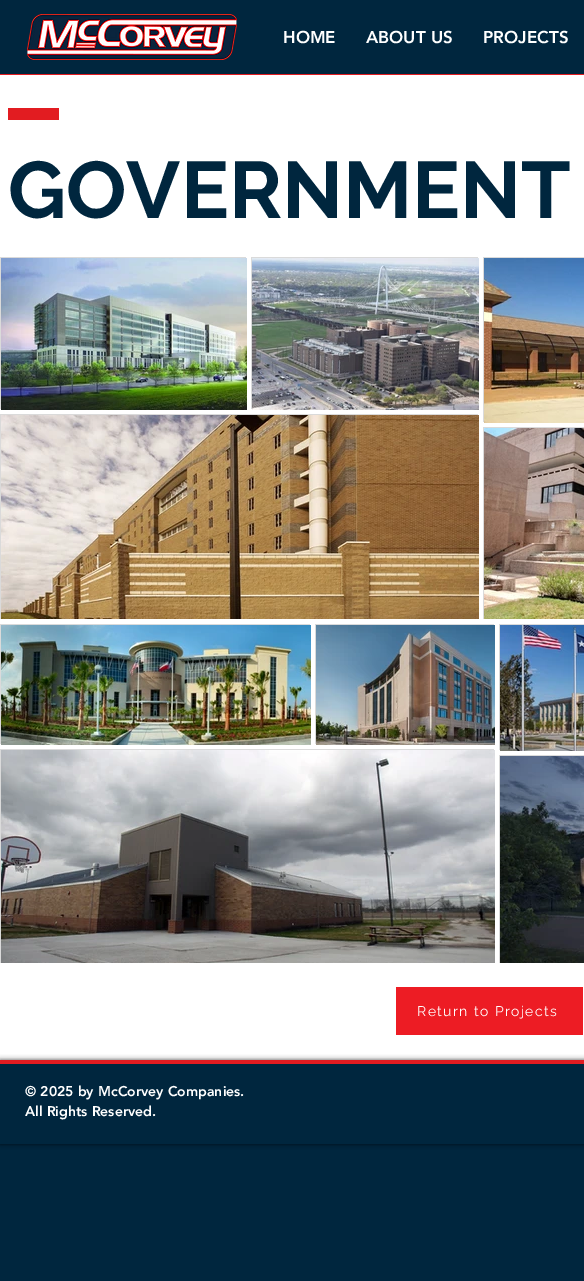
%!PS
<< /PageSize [584 1281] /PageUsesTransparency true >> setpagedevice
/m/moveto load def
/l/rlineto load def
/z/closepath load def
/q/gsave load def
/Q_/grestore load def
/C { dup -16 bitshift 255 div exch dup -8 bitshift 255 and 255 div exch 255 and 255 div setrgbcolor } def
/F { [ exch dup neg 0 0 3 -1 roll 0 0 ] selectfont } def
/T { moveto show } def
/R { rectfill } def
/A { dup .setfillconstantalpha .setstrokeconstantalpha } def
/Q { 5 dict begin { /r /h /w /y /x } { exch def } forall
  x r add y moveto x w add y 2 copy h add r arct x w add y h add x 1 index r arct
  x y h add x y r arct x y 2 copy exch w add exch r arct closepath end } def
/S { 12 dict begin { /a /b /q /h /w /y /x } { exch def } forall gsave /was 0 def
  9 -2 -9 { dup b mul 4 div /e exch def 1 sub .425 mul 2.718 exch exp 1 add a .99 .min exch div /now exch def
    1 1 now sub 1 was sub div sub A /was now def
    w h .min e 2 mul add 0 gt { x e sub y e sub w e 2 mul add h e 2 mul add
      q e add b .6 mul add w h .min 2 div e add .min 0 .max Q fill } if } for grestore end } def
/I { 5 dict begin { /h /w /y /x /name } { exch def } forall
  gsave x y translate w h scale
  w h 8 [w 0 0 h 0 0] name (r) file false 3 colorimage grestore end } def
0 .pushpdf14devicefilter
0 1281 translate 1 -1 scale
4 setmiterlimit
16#00263E C
0 0 584 1281 R
(1.rgb) 27 14 210 46 I
/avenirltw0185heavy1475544-Black 17 F
16#FFFFFF C
(HOME) 283 43 T
(ABOUT US) 366 43 T
(PROJECTS) 483 43 T
16#E21C21 C
0 74 584 1 R
16#FFFFFF C
0 75 584 985 R
16#E21C21 C
8 108 51 12 R
/Raleway-Bold 80 F
16#00263E C
(GOVERNMENT) 8 218 T
16#DADADA C
0 257 246 152 R
(2.rgb) 1 258 246 152 I
251 257 227 152 R
(3.rgb) 252 258 227 152 I
0 414 478 205 R
(4.rgb) 1 415 478 204 I
483 257 101 165 R
(5.rgb) 484 258 100 165 I
483 427 101 192 R
(6.rgb) 484 428 100 191 I
0 624 310 120 R
(7.rgb) 1 625 310 120 I
315 624 179 120 R
(8.rgb) 316 625 179 120 I
0 749 494 214 R
(9.rgb) 1 750 494 213 I
499 624 85 126 R
(10.rgb) 500 625 84 126 I
499 755 85 208 R
(11.rgb) 500 756 84 207 I
16#ED1C24 C
396 987 187 48 R
/Raleway-Regular 14 F
16#FFFFFF C
417 1016 m 1.4 0 (Return to Projects) ashow
q
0 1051 m 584 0 l 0 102 l -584 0 l z 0 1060 m 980 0 l 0 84 l -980 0 l z eoclip newpath
16#000000 C
0 1060 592 84 0 2.5 .7 S
Q_
16#E21C21 C
0 1060 584 4 R
/avenirltw0185heavy1475544-Black 14 F
16#FFFFFF C
(© 2025 by McCorvey Companies.) 25 1096 T
(All Rights Reserved.) 25 1116 T
.poppdf14devicefilter showpage
